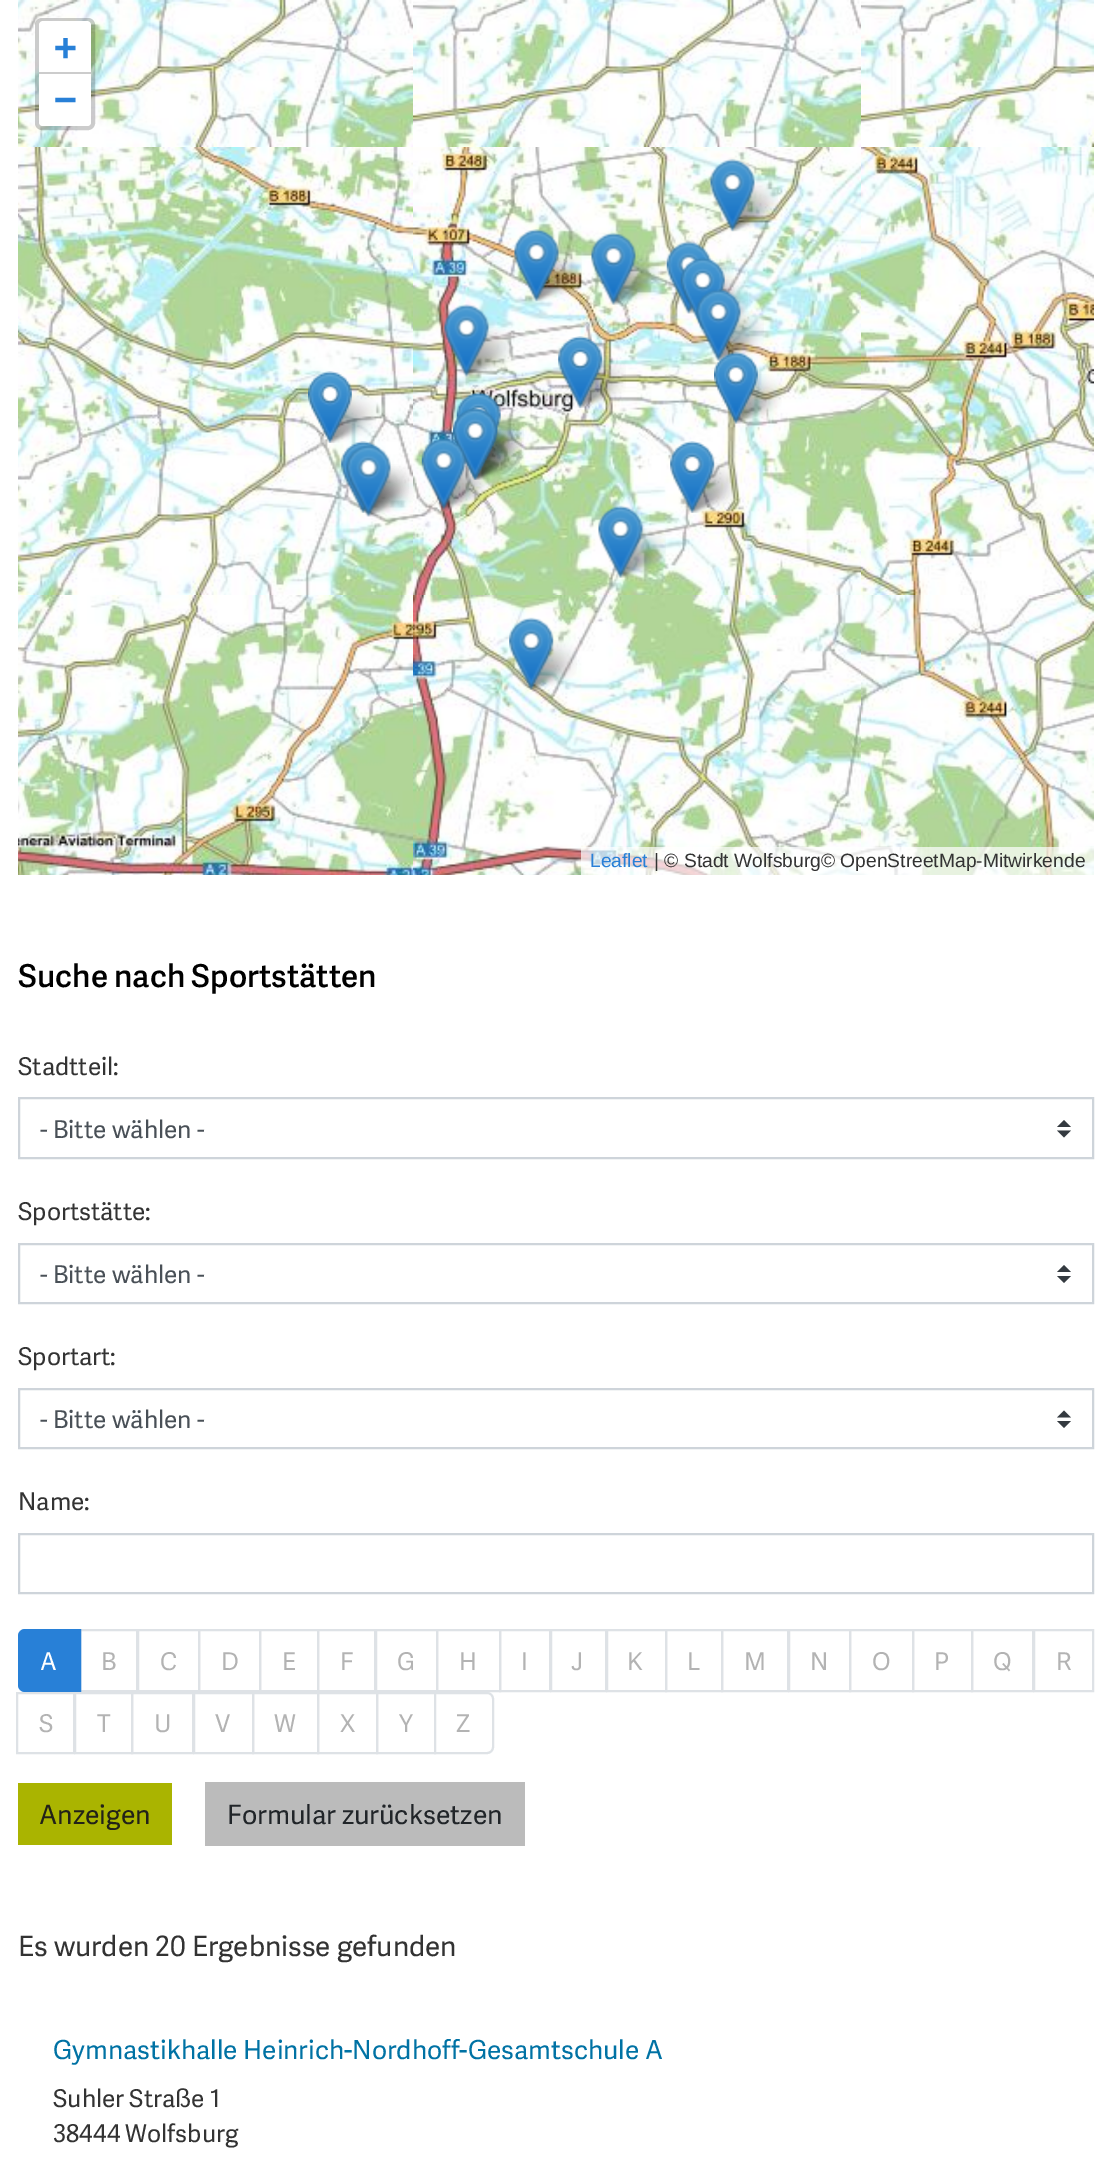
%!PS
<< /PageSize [1110 2165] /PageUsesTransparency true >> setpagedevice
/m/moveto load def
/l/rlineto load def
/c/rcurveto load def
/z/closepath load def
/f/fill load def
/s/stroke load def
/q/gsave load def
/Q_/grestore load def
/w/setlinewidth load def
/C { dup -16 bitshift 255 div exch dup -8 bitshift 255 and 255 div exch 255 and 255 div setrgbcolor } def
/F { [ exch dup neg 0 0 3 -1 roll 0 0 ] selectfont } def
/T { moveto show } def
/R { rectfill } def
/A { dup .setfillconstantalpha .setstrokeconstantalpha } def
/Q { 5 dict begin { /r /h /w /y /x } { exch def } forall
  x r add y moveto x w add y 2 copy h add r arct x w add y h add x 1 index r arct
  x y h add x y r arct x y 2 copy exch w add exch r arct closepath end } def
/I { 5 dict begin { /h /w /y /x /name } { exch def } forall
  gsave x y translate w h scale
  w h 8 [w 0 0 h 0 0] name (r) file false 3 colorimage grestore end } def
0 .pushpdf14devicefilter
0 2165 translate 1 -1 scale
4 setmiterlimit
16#FFFFFF C
0 0 1110 2165 R
(1.rgb) 18 0 395 147 I
(2.rgb) 413 0 448 147 I
(3.rgb) 861 0 233 147 I
(4.rgb) 18 147 395 448 I
(5.rgb) 413 147 448 448 I
(6.rgb) 861 147 233 448 I
(7.rgb) 18 595 395 280 I
(8.rgb) 413 595 448 280 I
(9.rgb) 861 595 233 280 I
(29.rgb) 726 182 52 50 I
(10.rgb) 710 159 45 73 I
(30.rgb) 530 252 52 50 I
(11.rgb) 514 229 45 73 I
(31.rgb) 607 255 52 50 I
(12.rgb) 591 232 45 73 I
(33.rgb) 696 280 52 50 I
(35.rgb) 712 311 52 50 I
(32.rgb) 682 265 52 49 I
(13.rgb) 666 241 45 73 I
(14.rgb) 680 257 45 73 I
(34.rgb) 460 327 52 50 I
(15.rgb) 444 304 45 73 I
(38.rgb) 574 358 52 50 I
(16.rgb) 558 336 45 72 I
(17.rgb) 696 289 45 72 I
(36.rgb) 324 393 52 50 I
(18.rgb) 308 371 44 72 I
(40.rgb) 469 430 52 50 I
(41.rgb) 469 430 52 50 I
(43.rgb) 437 460 52 50 I
(37.rgb) 480 414 44 50 I
(19.rgb) 456 392 45 72 I
(39.rgb) 730 374 52 50 I
(20.rgb) 714 351 44 73 I
(21.rgb) 453 408 45 72 I
(45.rgb) 364 467 50 50 I
(42.rgb) 357 464 52 49 I
(22.rgb) 341 441 45 72 I
(24.rgb) 453 408 45 72 I
(23.rgb) 421 438 45 72 I
(44.rgb) 686 463 52 50 I
(25.rgb) 670 441 45 72 I
(26.rgb) 346 445 45 72 I
(46.rgb) 614 528 52 50 I
(27.rgb) 598 505 45 73 I
(47.rgb) 525 640 52 50 I
(28.rgb) 509 617 45 73 I
0.2 A
16#000000 C
4 w
37 20 56 108 5 Q s
1 A
16#FFFFFF C
43 21 m 44 0 l 2 0 4 2 4 4 c 0 49 l -52 0 l 0 -49 l 0 -2 2 -4 4 -4 c z f
16#CCCCCC C
39 72 52 2 R
/DejaVuSansMono-Bold 38 F
16#2880D7 C
(+) 54 60 T
16#FFFFFF C
39 74 m 52 0 l 0 48 l 0 2 -2 4 -4 4 c -44 0 l -2 0 -4 -2 -4 -4 c z f
16#2880D7 C
(−) 54 112 T
0.7 A
16#FFFFFF C
581 847 513 28 R
/LiberationSans-Regular 19.25 F
1 A
16#2880D7 C
(Leaflet) 590 867 T
16#333333 C
(| © Stadt Wolfsburg© OpenStreetMap-Mitwirkende) 654 867 T
/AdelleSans-SemiBold 31.5 F
16#000000 C
(Suche nach Sportstätten) 18 987 T
/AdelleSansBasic-Regular 24.5 F
16#333333 C
(Stadtteil:) 18 1075 T
16#343A40 C
1064 1120 m -7 7 l 14 0 l z 1064 1137.5 m -7 -7 l 14 0 l z f
16#CED4DA C
2 w
19 1098 1074 60 rectstroke
16#495057 C
(- Bitte wählen -) 40 1138 T
16#333333 C
(Sportstätte:) 18 1220 T
16#343A40 C
1064 1265 m -7 7 l 14 0 l z 1064 1283 m -7 -7 l 14 0 l z f
16#CED4DA C
19 1244 1074 59 rectstroke
16#495057 C
(- Bitte wählen -) 40 1283 T
16#333333 C
(Sportart:) 18 1365 T
16#343A40 C
1064 1410.5 m -7 7 l 14 0 l z 1064 1428 m -7 -7 l 14 0 l z f
16#CED4DA C
19 1389 1074 59 rectstroke
16#495057 C
(- Bitte wählen -) 40 1428 T
16#333333 C
(Name:) 18 1510 T
16#CED4DA C
19 1534 1074 59 rectstroke
16#DEE2E6 C
80 1630 57 61 rectstroke
16#2880D7 C
25 1630 m 55 0 l 0 61 l -55 0 l -3.5 0 -6 -2.5 -6 -6 c 0 -49 l 0 -3.5 2.5 -6 6 -6 c z q f Q_
s
16#FFFFFF C
(A) 40 1670 T
16#B3B3B3 C
(B) 101 1670 T
16#DEE2E6 C
138 1630 61 61 rectstroke
16#B3B3B3 C
(C) 160 1670 T
16#DEE2E6 C
199 1630 61 61 rectstroke
16#B3B3B3 C
(D) 221 1670 T
16#DEE2E6 C
260 1630 58 61 rectstroke
16#B3B3B3 C
(E) 282 1670 T
16#DEE2E6 C
318 1630 57 61 rectstroke
16#B3B3B3 C
(F) 340 1670 T
16#DEE2E6 C
376 1630 61 61 rectstroke
16#B3B3B3 C
(G) 397 1670 T
16#DEE2E6 C
437 1630 63 61 rectstroke
16#B3B3B3 C
(H) 459 1670 T
16#DEE2E6 C
500 1630 50 61 rectstroke
16#B3B3B3 C
(I) 521 1670 T
16#DEE2E6 C
551 1630 55 61 rectstroke
16#B3B3B3 C
(J) 571 1670 T
16#DEE2E6 C
607 1630 59 61 rectstroke
16#B3B3B3 C
(K) 627 1670 T
16#DEE2E6 C
666 1630 56 61 rectstroke
16#B3B3B3 C
(L) 687 1670 T
16#DEE2E6 C
722 1630 66 61 rectstroke
16#B3B3B3 C
(M) 744 1670 T
16#DEE2E6 C
789 1630 61 61 rectstroke
16#B3B3B3 C
(N) 810 1670 T
16#DEE2E6 C
850 1630 63 61 rectstroke
16#B3B3B3 C
(O) 872 1670 T
16#DEE2E6 C
913 1630 59 61 rectstroke
16#B3B3B3 C
(P) 934 1670 T
16#DEE2E6 C
972 1630 61 61 rectstroke
16#B3B3B3 C
(Q) 993 1670 T
16#DEE2E6 C
1034 1630 59 61 rectstroke
16#B3B3B3 C
(R) 1056 1670 T
16#DEE2E6 C
17 1693 57 60 rectstroke
16#B3B3B3 C
(S) 39 1732 T
16#DEE2E6 C
75 1693 57 60 rectstroke
16#B3B3B3 C
(T) 97 1732 T
16#DEE2E6 C
132 1693 61 60 rectstroke
16#B3B3B3 C
(U) 154 1732 T
16#DEE2E6 C
194 1693 59 60 rectstroke
16#B3B3B3 C
(V) 215 1732 T
16#DEE2E6 C
253 1693 65 60 rectstroke
16#B3B3B3 C
(W) 274 1732 T
16#DEE2E6 C
318 1693 59 60 rectstroke
16#B3B3B3 C
(X) 340 1732 T
16#DEE2E6 C
377 1693 58 60 rectstroke
16#B3B3B3 C
(Y) 399 1732 T
16#FFFFFF C
435 1693 m 52 0 l 3.5 0 6 2.5 6 6 c 0 48 l 0 3.5 -2.5 6 -6 6 c -52 0 l z q f Q_
16#DEE2E6 C
s
16#B3B3B3 C
(Z) 456 1732 T
16#AAB400 C
18 1783 154 62 R
/AdelleSansBasic-Regular 26.6 F
16#222218 C
(Anzeigen) 39 1824 T
16#BBBBBB C
205 1782 320 64 R
16#212529 C
(Formular zurücksetzen) 227 1824 T
/AdelleSansBasic-Regular 28 F
16#333333 C
(Es wurden 20 Ergebnisse gefunden) 18 1956 T
/AdelleSansBasic-Regular 26.25 F
16#0072A4 C
(Gymnastikhalle Heinrich-Nordhoff-Gesamtschule A) 53 2059 T
/AdelleSansBasic-Regular 24.5 F
16#333333 C
(Suhler Straße 1) 53 2107 T
(38444 Wolfsburg) 53 2142 T
.poppdf14devicefilter showpage
